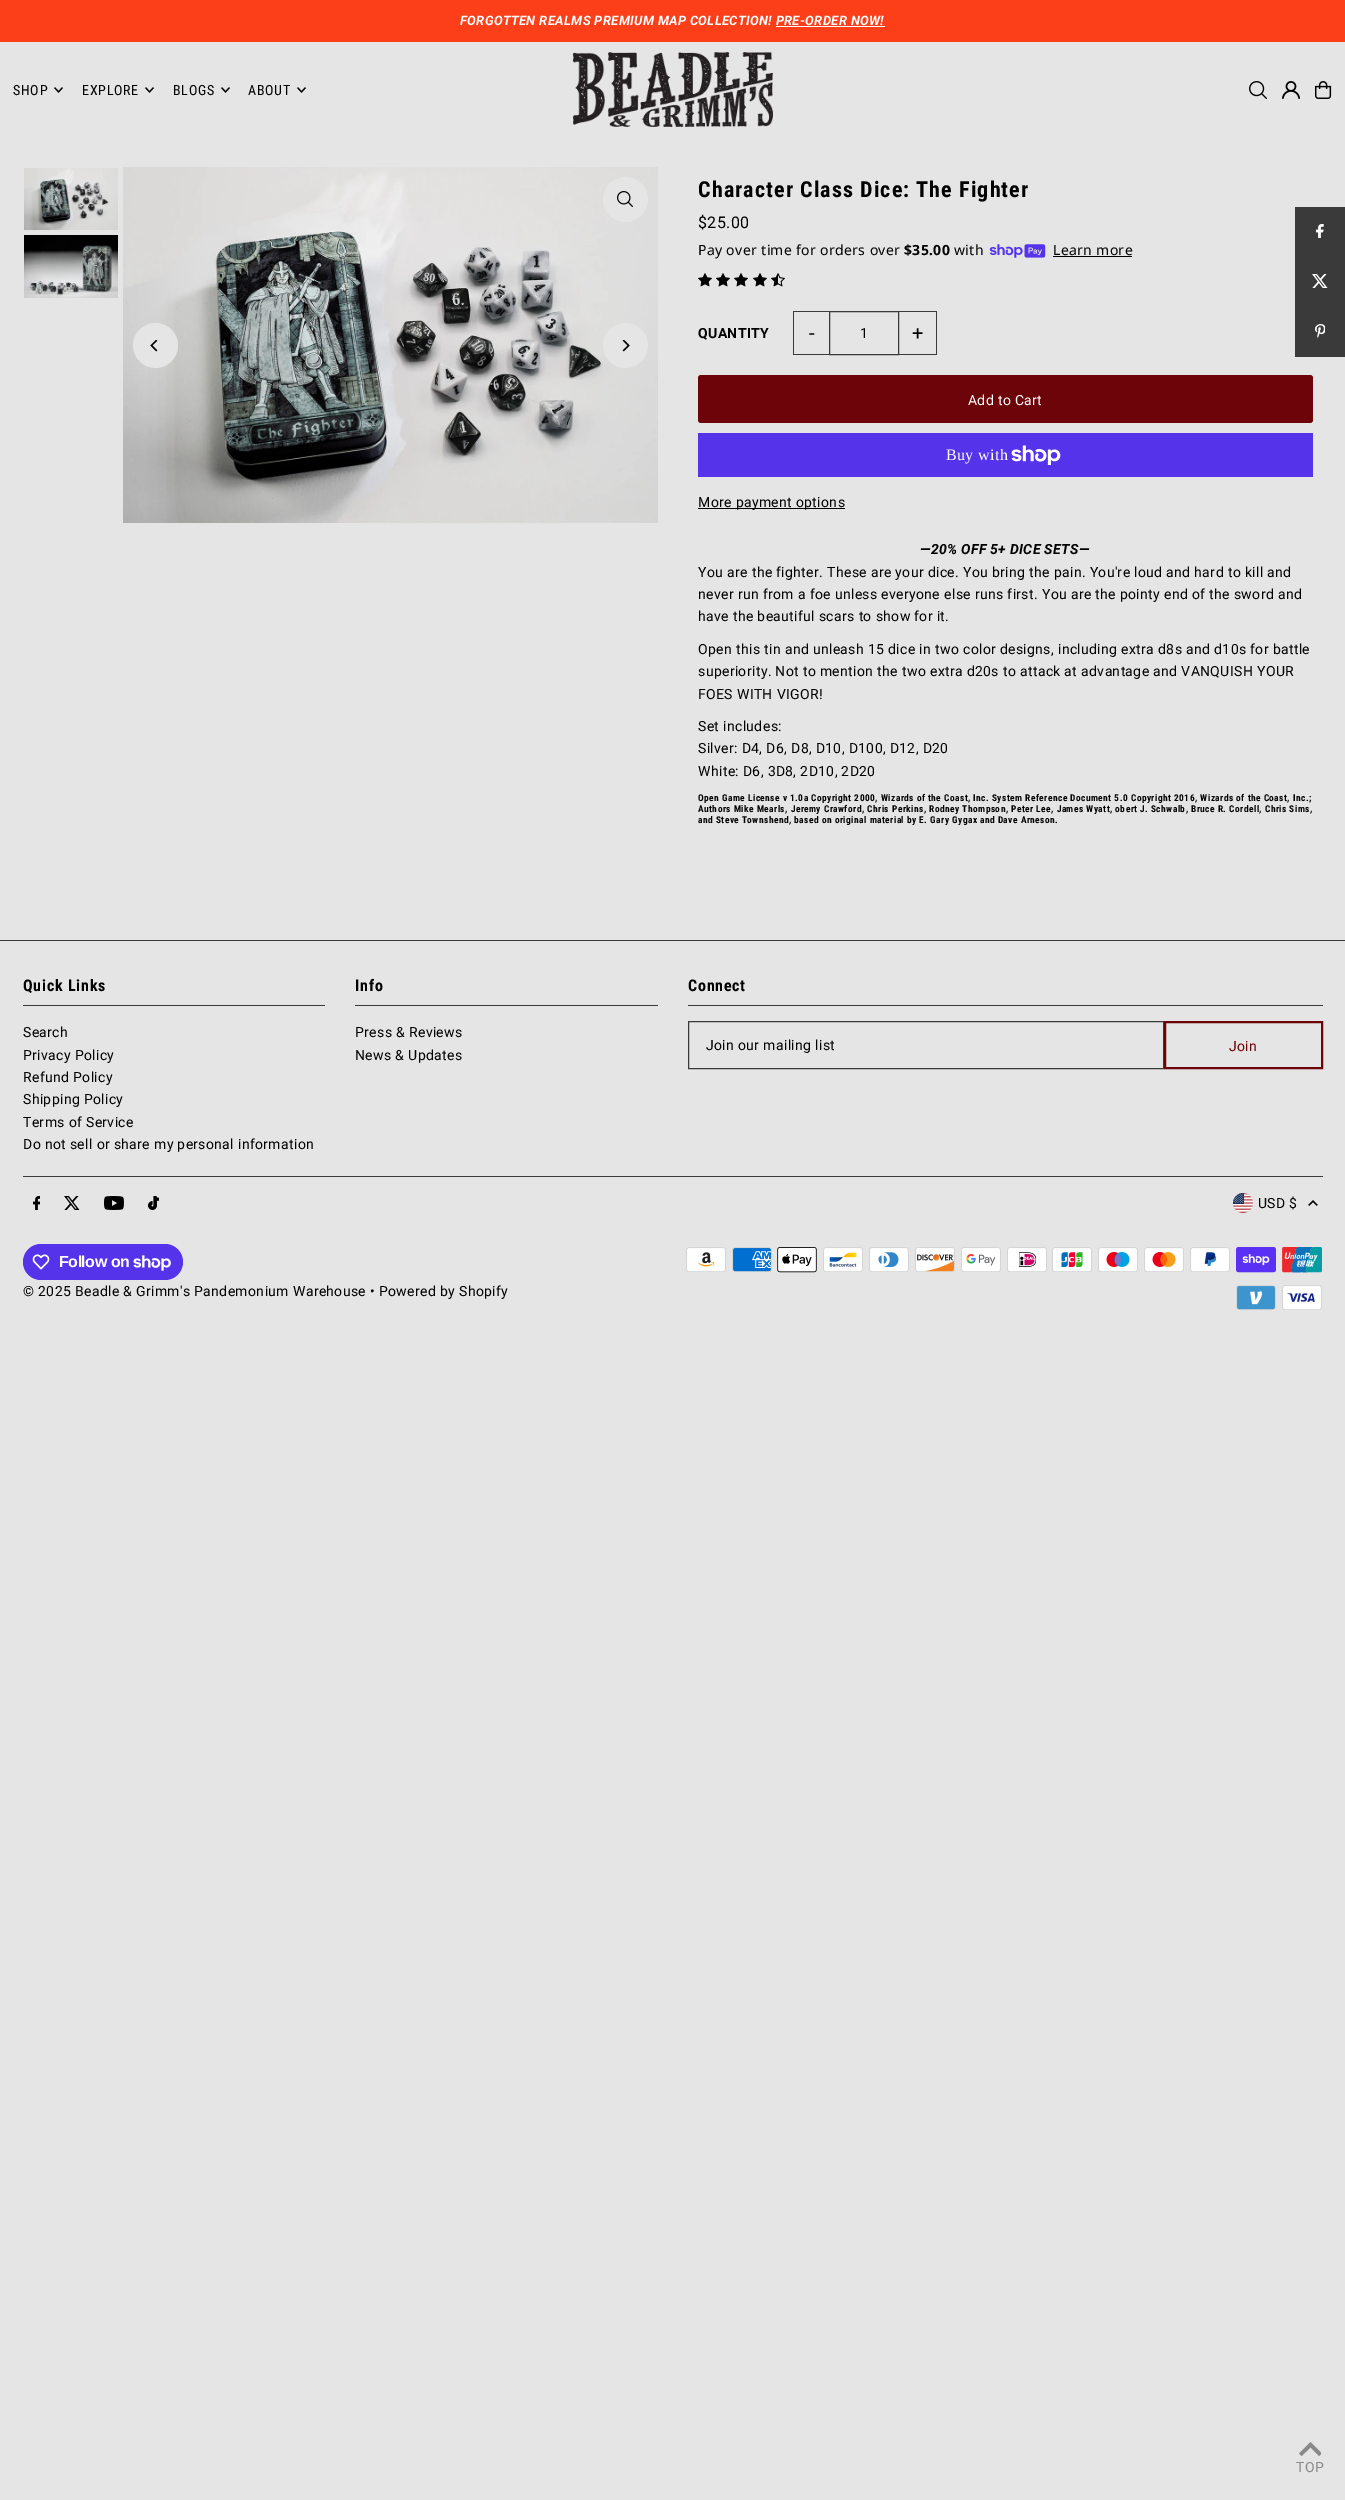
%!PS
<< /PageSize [1345 2500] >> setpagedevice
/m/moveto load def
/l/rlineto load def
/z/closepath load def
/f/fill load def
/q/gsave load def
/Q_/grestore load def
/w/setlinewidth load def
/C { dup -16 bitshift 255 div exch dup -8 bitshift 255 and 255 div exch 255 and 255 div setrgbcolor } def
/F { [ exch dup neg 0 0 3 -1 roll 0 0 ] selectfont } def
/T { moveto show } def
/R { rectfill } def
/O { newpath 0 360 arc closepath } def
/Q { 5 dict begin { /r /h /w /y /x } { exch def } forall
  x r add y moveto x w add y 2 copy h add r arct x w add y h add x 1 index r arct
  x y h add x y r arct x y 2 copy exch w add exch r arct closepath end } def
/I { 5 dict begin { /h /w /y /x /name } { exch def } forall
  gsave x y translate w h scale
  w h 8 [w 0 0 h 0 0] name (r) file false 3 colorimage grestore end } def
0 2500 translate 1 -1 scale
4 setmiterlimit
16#E5E5E5 C
0 0 1345 2500 R
16#FC3F19 C
0 0 1345 42 R
/Roboto-BoldItalic 13 F
16#FFFFFF C
460 25 m .35 0 (FORGOTTEN REALMS PREMIUM MAP COLLECTION! PRE-ORDER NOW!) ashow
776 26 109 1 R
/RobotoCondensed-Regular 14 F
16#000000 C
13 95 m .75 0 (SHOP) ashow
(1.rgb) 54 87 9 6 I
82 95 m .75 0 (EXPLORE) ashow
(1.rgb) 145 87 9 6 I
173 95 m .75 0 (BLOGS) ashow
(1.rgb) 221 87 9 6 I
248 95 m .75 0 (ABOUT) ashow
(1.rgb) 297 87 9 6 I
(2.rgb) 573 52 200 75 I
(3.rgb) 1249 81 18 18 I
(4.rgb) 1282 81 18 18 I
(5.rgb) 1315 81 17 18 I
(6.rgb) 24 168 94 62 I
(7.rgb) 24 235 94 63 I
(8.rgb) 123 167 535 356 I
16#E5E5E5 C
625.5 199.5 22.5 O f
(9.rgb) 617 191 16 16 I
155.5 345.5 22.5 O f
(10.rgb) 150 340 8 12 I
625.5 345.5 22.5 O f
(11.rgb) 622 340 8 12 I
/RobotoCondensed-Bold 22 F
16#000000 C
698 197 m 1.1 0 (Character Class Dice: The Fighter) ashow
/Roboto-Regular 16 F
698 228 m .35 0 ($25.00) ashow
/NotoSans-Regular 14 F
698 255 m .35 0 (Pay over time for orders over) ashow
/NotoSans-Bold 14 F
904 255 m .35 0 ($35.00) ashow
/NotoSans-Regular 14 F
954 255 m .35 0 (with) ashow
(12.rgb) 989 244 57 14 I
1053 255 m .35 0 (Learn more) ashow
1053 256 79 1 R
(13.rgb) 698 273 14 14 I
(13.rgb) 716 273 14 14 I
(13.rgb) 734 273 14 14 I
(13.rgb) 753 273 14 14 I
(14.rgb) 771 273 14 14 I
/Roboto-Bold 14 F
698 338 m .35 0 (QUANTITY) ashow
16#3A3A3A C
793 311 38 1 R
793 354 38 1 R
793 311 1 44 R
/Roboto-Regular 20 F
16#000000 C
(-) 809 340 T
16#3A3A3A C
829.5 311.5 69 43 rectstroke
/Roboto-Regular 14 F
16#000000 C
860 338 m .35 0 (1) ashow
16#3A3A3A C
899 311 38 1 R
936 311 1 44 R
899 354 38 1 R
/Roboto-Regular 20 F
16#000000 C
(+) 912 340 T
16#6C0409 C
698 375 615 48 3 Q f
/Roboto-Regular 14 F
16#FFFFFF C
968 405 m .35 0 (Add to Cart) ashow
16#5433EB C
698 433 615 44 R
/LiberationSerif-Regular 16 F
16#FFFFFF C
946 460 m .35 0 (Buy with) ashow
(15.rgb) 1011 445 50 20 I
16#000000 C
698 508 147 1 R
/Roboto-Regular 14 F
698 507 m .35 0 (More payment options) ashow
/Roboto-BoldItalic 14 F
920 554 m .35 0 (—20% OFF 5+ DICE SETS—) ashow
/Roboto-Regular 14 F
698 577 m .35 0 (You are the fighter. These are your dice. You bring the pain. You're loud and hard to kill and) ashow
698 599 m .35 0 (never run from a foe unless everyone else runs first. You are the pointy end of the sword and) ashow
698 621 m .35 0 (have the beautiful scars to show for it.) ashow
698 654 m .35 0 (Open this tin and unleash 15 dice in two color designs, including extra d8s and d10s for battle) ashow
698 676 m .35 0 (superiority. Not to mention the two extra d20s to attack at advantage and VANQUISH YOUR) ashow
698 699 m .35 0 (FOES WITH VIGOR!) ashow
698 731 m .35 0 (Set includes:) ashow
698 753 m .35 0 (Silver: D4, D6, D8, D10, D100, D12, D20) ashow
698 776 m .35 0 (White: D6, 3D8, 2D10, 2D20) ashow
/RobotoCondensed-Bold 9.38 F
698 801 m .47 0 (Open Game License v 1.0a Copyright 2000, Wizards of the Coast, Inc. System Reference Document 5.0 Copyright 2016, Wizards of the Coast, Inc.;) ashow
698 812 m .47 0 (Authors Mike Mearls, Jeremy Crawford, Chris Perkins, Rodney Thompson, Peter Lee, James Wyatt, obert J. Schwalb, Bruce R. Cordell, Chris Sims,) ashow
698 823 m .47 0 (and Steve Townshend, based on original material by E. Gary Gygax and Dave Arneson.) ashow
16#3A3A3A C
1295 207 50 150 R
(16.rgb) 1316 224 8 14 I
(17.rgb) 1312 274 16 14 I
(18.rgb) 1315 324 10 14 I
0 940 1345 1 R
23 1005 302 1 R
/RobotoCondensed-Bold 16 F
16#000000 C
23 991 m .75 0 (Quick Links) ashow
/Roboto-Regular 14 F
23 1037 m .35 0 (Search) ashow
23 1060 m .35 0 (Privacy Policy) ashow
23 1082 m .35 0 (Refund Policy) ashow
23 1104 m .35 0 (Shipping Policy) ashow
23 1127 m .35 0 (Terms of Service) ashow
23 1149 m .35 0 (Do not sell or share my personal information) ashow
16#3A3A3A C
355 1005 303 1 R
/RobotoCondensed-Bold 16 F
16#000000 C
355 991 m .75 0 (Info) ashow
/Roboto-Regular 14 F
355 1037 m .35 0 (Press & Reviews) ashow
355 1060 m .35 0 (News & Updates) ashow
16#3A3A3A C
688 1005 635 1 R
/RobotoCondensed-Bold 16 F
16#000000 C
688 991 m .75 0 (Connect) ashow
16#3A3A3A C
688.5 1021.5 475 47 rectstroke
/Roboto-Regular 14 F
16#000000 C
706 1050 m .35 0 (Join our mailing list) ashow
16#6C0409 C
2 w
1165 1022 157 46 rectstroke
1229 1051 m .35 0 (Join) ashow
16#3A3A3A C
23 1176 1300 1 R
(19.rgb) 1233 1193 20 20 I
16#000000 C
1258 1208 m .35 0 (USD $) ashow
(20.rgb) 1308 1200 10 6 I
(21.rgb) 686 1247 40 25 I
(22.rgb) 732 1247 40 25 I
(23.rgb) 777 1247 40 26 I
(24.rgb) 823 1247 40 25 I
(25.rgb) 869 1247 40 25 I
(26.rgb) 915 1247 40 25 I
(27.rgb) 961 1247 40 25 I
(28.rgb) 1007 1247 40 25 I
(29.rgb) 1052 1247 40 25 I
(30.rgb) 1098 1247 40 25 I
(31.rgb) 1144 1247 40 25 I
(32.rgb) 1190 1247 40 25 I
(33.rgb) 1236 1247 40 26 I
(34.rgb) 1282 1247 40 26 I
(35.rgb) 1236 1285 40 25 I
(36.rgb) 1282 1285 40 25 I
(37.rgb) 33 1196 7 14 I
(38.rgb) 64 1196 16 14 I
(39.rgb) 104 1196 20 14 I
(40.rgb) 148 1196 11 14 I
16#5433EB C
23 1244 160 36 18 Q f
(41.rgb) 32 1254 18 16 I
/LiberationSans-Bold 16 F
16#FFFFFF C
59 1267 m -.5 0 (Follow on) ashow
(42.rgb) 133 1255 38 16 I
/Roboto-Regular 14 F
16#000000 C
23 1296 m .35 0 (© 2025 Beadle & Grimm's Pandemonium Warehouse • Powered by Shopify) ashow
q
1299 2442 22 14 rectclip
16#898989 C
1310.5 2442 m -11.5 11.5 l 2.5 2.5 l 9 -8.5 l 8.5 8.5 l 3 -2.5 l z f
Q_
16#898989 C
1296 2472 m .35 0 (TOP) ashow
showpage
